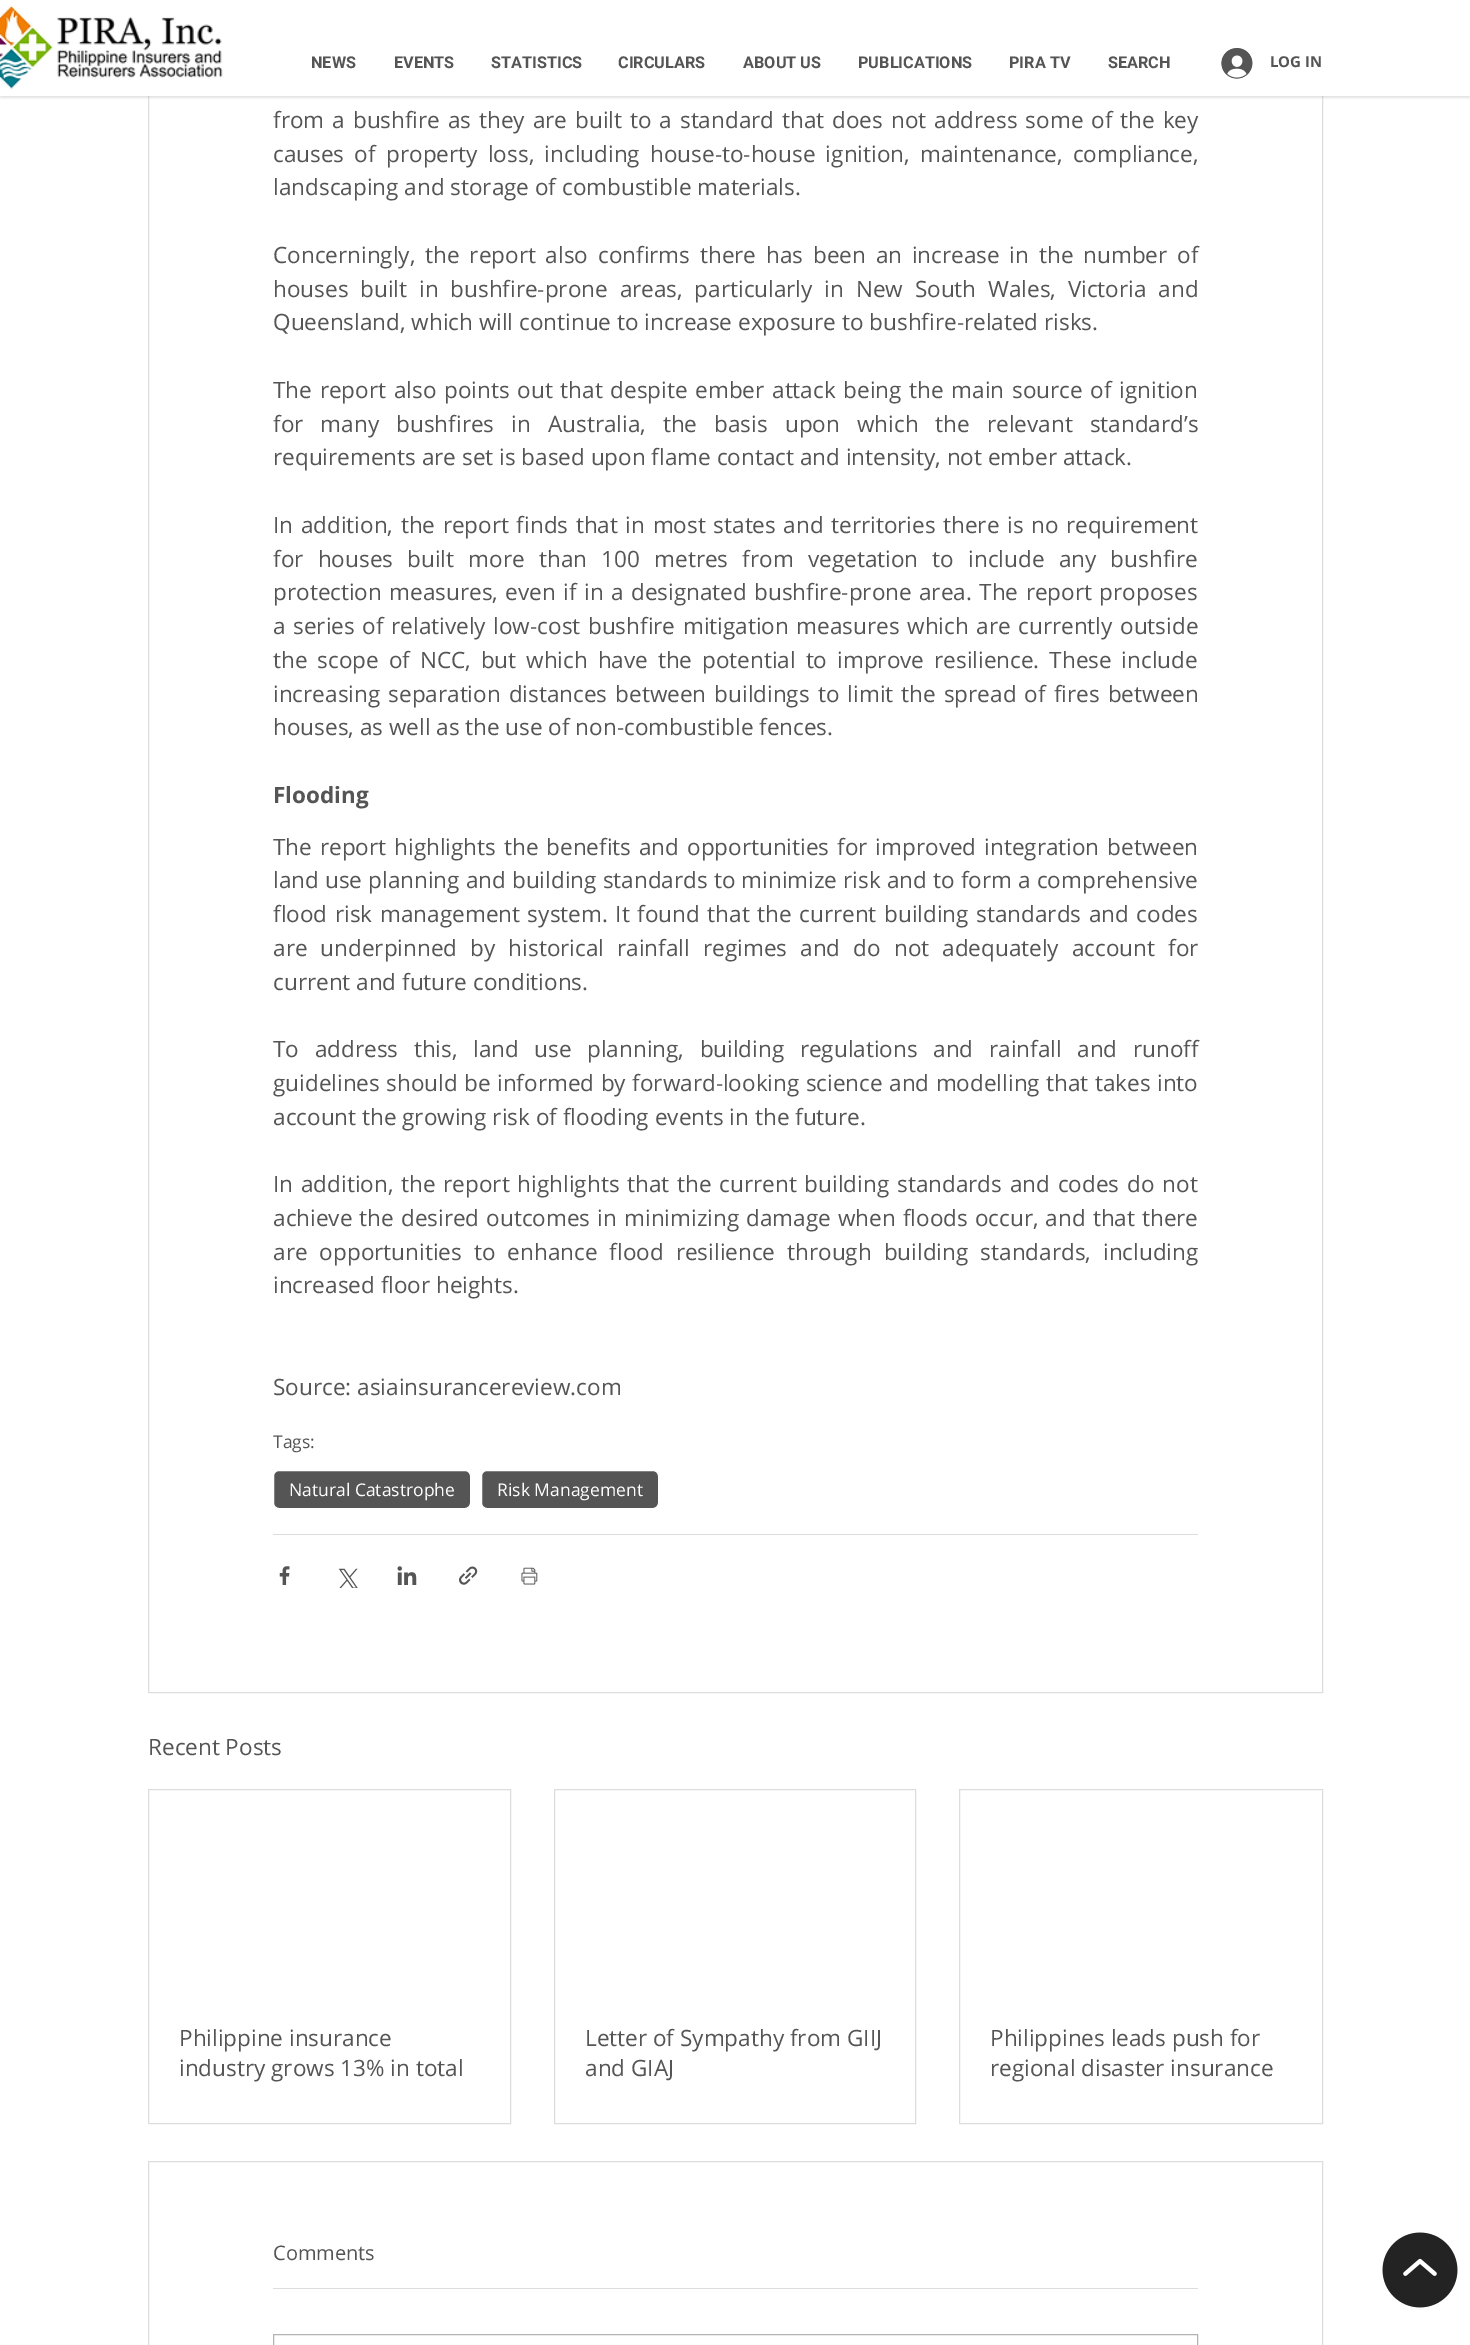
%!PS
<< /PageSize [1470 2345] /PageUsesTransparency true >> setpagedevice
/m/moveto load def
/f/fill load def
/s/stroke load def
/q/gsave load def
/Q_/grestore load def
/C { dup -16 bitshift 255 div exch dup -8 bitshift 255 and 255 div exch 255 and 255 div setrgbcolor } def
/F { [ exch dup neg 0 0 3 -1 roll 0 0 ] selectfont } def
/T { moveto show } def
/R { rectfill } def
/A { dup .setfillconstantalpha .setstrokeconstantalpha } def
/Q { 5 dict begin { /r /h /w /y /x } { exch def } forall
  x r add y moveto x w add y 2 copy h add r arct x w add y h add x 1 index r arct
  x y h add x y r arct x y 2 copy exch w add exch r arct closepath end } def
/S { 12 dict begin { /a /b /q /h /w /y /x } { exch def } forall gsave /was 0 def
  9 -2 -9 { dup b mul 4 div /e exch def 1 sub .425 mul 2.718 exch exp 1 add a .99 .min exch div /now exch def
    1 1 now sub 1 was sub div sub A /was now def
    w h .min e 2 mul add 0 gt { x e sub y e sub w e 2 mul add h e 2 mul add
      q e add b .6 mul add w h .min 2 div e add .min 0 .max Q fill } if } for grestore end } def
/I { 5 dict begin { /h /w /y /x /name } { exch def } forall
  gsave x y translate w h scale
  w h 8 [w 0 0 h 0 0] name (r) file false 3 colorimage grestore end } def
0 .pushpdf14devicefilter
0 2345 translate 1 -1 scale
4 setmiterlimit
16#FFFFFF C
0 0 1470 2345 R
16#DDDDDD C
148.5 -.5 1174 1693 rectstroke
16#A0A0A0 C
0 1 1470 97 0 1 .3 S
16#FFFFFF C
0 0 1470 96 R
(1.rgb) 0 5 223 86 I
/Roboto-Bold 16.25 F
16#555555 C
(NEWS) 311 68 T
(EVENTS) 394 68 T
(STATISTICS) 491 68 T
(CIRCULARS) 618 68 T
(ABOUT US) 743 68 T
(PUBLICATIONS) 858 68 T
(PIRA TV) 1009 68 T
(SEARCH) 1108 68 T
(2.rgb) 1221 48 32 31 I
/OpenSans-Bold 15 F
(LOG IN) 1270 67 T
/OpenSans-Regular 22.5 F
273 128 m 2.1 0 32 (from a bushfire as they are built to a standard that does not address some of the key) widthshow
273 162 m 4.5 0 32 (causes of property loss, including house-to-house ignition, maintenance, compliance,) widthshow
(landscaping and storage of combustible materials.) 273 195 T
273 263 m 4 0 32 (Concerningly, the report also confirms there has been an increase in the number of) widthshow
273 297 m 6 0 32 (houses built in bushfire-prone areas, particularly in New South Wales, Victoria and) widthshow
(Queensland, which will continue to increase exposure to bushfire-related risks.) 273 330 T
273 398 m 1.9 0 32 (The report also points out that despite ember attack being the main source of ignition) widthshow
273 432 m 11.25 0 32 (for many bushfires in Australia, the basis upon which the relevant standard’s) widthshow
(requirements are set is based upon flame contact and intensity, not ember attack.) 273 465 T
273 533 m 1.75 0 32 (In addition, the report finds that in most states and territories there is no requirement) widthshow
273 567 m 8.4 0 32 (for houses built more than 100 metres from vegetation to include any bushfire) widthshow
273 600 m 1.6 0 32 (protection measures, even if in a designated bushfire-prone area. The report proposes) widthshow
273 634 m 1.75 0 32 (a series of relatively low-cost bushfire mitigation measures which are currently outside) widthshow
273 668 m 4.1 0 32 (the scope of NCC, but which have the potential to improve resilience. These include) widthshow
273 702 m 2.25 0 32 (increasing separation distances between buildings to limit the spread of fires between) widthshow
(houses, as well as the use of non-combustible fences.) 273 735 T
/OpenSans-Bold 22.5 F
(Flooding) 273 803 T
/OpenSans-Regular 22.5 F
273 855 m 2.1 0 32 (The report highlights the benefits and opportunities for improved integration between) widthshow
273 888 m .25 0 32 (land use planning and building standards to minimize risk and to form a comprehensive) widthshow
273 922 m 1.75 0 32 (flood risk management system. It found that the current building standards and codes) widthshow
273 956 m 7.25 0 32 (are underpinned by historical rainfall regimes and do not adequately account for) widthshow
(current and future conditions.) 273 990 T
273 1057 m 9.75 0 32 (To address this, land use planning, building regulations and rainfall and runoff) widthshow
273 1091 m .6 0 32 (guidelines should be informed by forward-looking science and modelling that takes into) widthshow
(account the growing risk of flooding events in the future.) 273 1125 T
273 1192 m 2 0 32 (In addition, the report highlights that the current building standards and codes do not) widthshow
273 1226 m 1.25 0 32 (achieve the desired outcomes in minimizing damage when floods occur, and that there) widthshow
273 1260 m 6.25 0 32 (are opportunities to enhance flood resilience through building standards, including) widthshow
(increased floor heights.) 273 1293 T
(Source: asiainsurancereview.com) 273 1395 T
/OpenSans-Regular 17.5 F
(Tags:) 273 1448 T
273.5 1470.5 197 38 5.5 Q q f Q_
16#FFFFFF C
s
(Natural Catastrophe) 289 1496 T
16#555555 C
481.5 1470.5 177 38 5.5 Q q f Q_
16#FFFFFF C
s
(Risk Management) 497 1496 T
16#DDDDDD C
273 1534 925 1 R
(3.rgb) 279 1566 11 19 I
(4.rgb) 338 1568 20 20 I
(5.rgb) 397 1566 20 19 I
(6.rgb) 459 1566 19 19 I
(7.rgb) 521 1567 17 18 I
/OpenSans-Regular 22.5 F
16#555555 C
(Recent Posts) 148 1755 T
16#DDDDDD C
148.5 1789.5 362 334 rectstroke
16#555555 C
(Philippine insurance) 179 2046 T
(industry grows 13% in total) 179 2076 T
16#DDDDDD C
554.5 1789.5 361 334 rectstroke
16#555555 C
(Letter of Sympathy from GIIJ) 585 2046 T
(and GIAJ) 585 2076 T
16#DDDDDD C
959.5 1789.5 363 334 rectstroke
16#555555 C
(Philippines leads push for) 990 2046 T
(regional disaster insurance) 990 2076 T
16#DDDDDD C
148.5 2161.5 1174 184 rectstroke
/OpenSans-Regular 20 F
16#555555 C
(Comments) 273 2260 T
16#DDDDDD C
273 2288 925 1 R
16#B3B3B3 C
273.5 2334.5 924 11 rectstroke
(8.rgb) 1382 2232 76 76 I
.poppdf14devicefilter showpage
